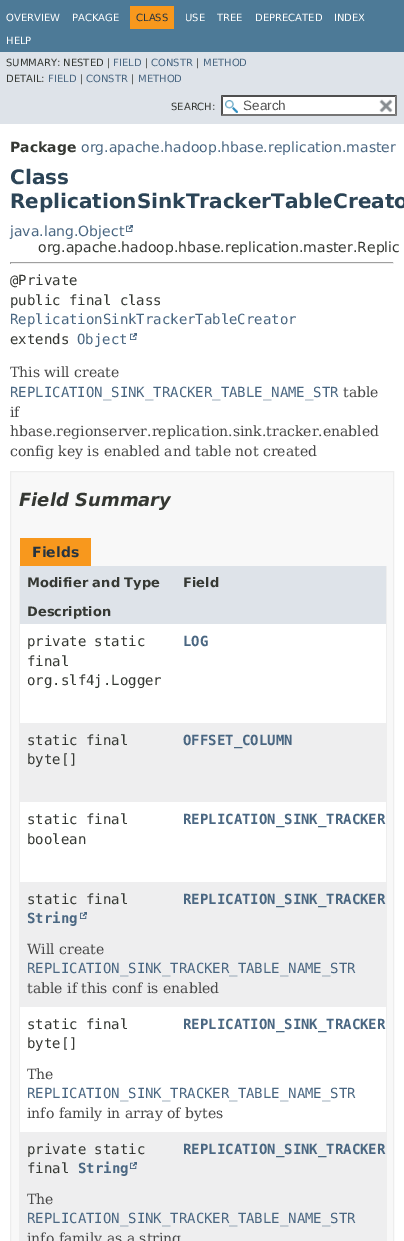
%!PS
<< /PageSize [404 1241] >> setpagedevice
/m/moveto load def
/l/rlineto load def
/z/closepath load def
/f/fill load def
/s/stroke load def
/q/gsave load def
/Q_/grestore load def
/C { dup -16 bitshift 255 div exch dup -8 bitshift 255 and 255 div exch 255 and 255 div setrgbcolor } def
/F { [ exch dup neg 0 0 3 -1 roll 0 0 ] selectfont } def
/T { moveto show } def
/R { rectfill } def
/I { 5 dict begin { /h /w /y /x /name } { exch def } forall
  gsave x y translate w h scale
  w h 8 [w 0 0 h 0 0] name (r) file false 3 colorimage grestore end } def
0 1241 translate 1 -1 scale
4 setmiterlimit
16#FFFFFF C
0 0 404 1241 R
16#4D7A97 C
0 0 404 52 R
/DejaVuSans-Regular 10 F
16#FFFFFF C
(OVERVIEW) 6 21 T
(PACKAGE) 72 21 T
16#F8981D C
130 6 44 23 R
16#253441 C
(CLASS) 136 21 T
16#FFFFFF C
(USE) 185 21 T
(TREE) 217 21 T
(DEPRECATED) 255 21 T
(INDEX) 334 21 T
(HELP) 6 44 T
16#DEE3E9 C
0 52 404 72 R
16#353833 C
(SUMMARY: NESTED |) 6 66 T
16#4A6782 C
(FIELD) 113 66 T
16#353833 C
(|) 145 66 T
16#4A6782 C
(CONSTR) 151 66 T
16#353833 C
(|) 196 66 T
16#4A6782 C
(METHOD) 203 66 T
16#353833 C
(DETAIL:) 6 82 T
16#4A6782 C
(FIELD) 48 82 T
16#353833 C
(|) 80 82 T
16#4A6782 C
(CONSTR) 86 82 T
16#353833 C
(|) 131 82 T
16#4A6782 C
(METHOD) 138 82 T
16#353833 C
(SEARCH:) 171 110 T
16#FFFFFF C
221 95 176 21 R
(1.rgb) 225 100 13 13 I
16#4F4F4F C
221 95 m 176 0 l -2 2 l -172 0 l z f
16#767676 C
397 95 m 0 21 l -2 -2 l 0 -17 l z f
397 116 m -176 0 l 2 -2 l 172 0 l z f
16#4F4F4F C
221 116 m 0 -21 l 2 2 l 0 17 l z f
/LiberationSans-Regular 13.5 F
16#545454 C
(Search) 243 110 T
(2.rgb) 379 99 14 14 I
/DejaVuSans-Bold 14 F
16#353833 C
(Package) 10 152 T
/DejaVuSans-Regular 14 F
16#4A6782 C
(org.apache.hadoop.hbase.replication.master) 81 152 T
/DejaVuSans-Bold 20 F
16#2C4557 C
(Class) 10 184 T
(ReplicationSinkTrackerTableCreato) 10 208 T
/DejaVuSans-Regular 14 F
16#4A6782 C
(java.lang.Object) 10 236 T
(3.rgb) 126 225 7 7 I
16#353833 C
(org.apache.hadoop.hbase.replication.master.Replic) 38 252 T
16#9F9F9F C
10 262 384 1 R
16#EEEEEE C
393 262 1 2 R
10 263 384 1 R
16#9F9F9F C
10 262 1 2 R
/DejaVuSansMono-Regular 14 F
16#353833 C
(@Private) 10 285 T
(public final class) 10 305 T
16#4A6782 C
(ReplicationSinkTrackerTableCreator) 10 324 T
16#353833 C
(extends) 10 344 T
16#4A6782 C
(Object) 77 344 T
(3.rgb) 130 333 7 7 I
/DejaVuSerif-Regular 14 F
16#474747 C
(This will create) 10 377 T
/DejaVuSansMono-Regular 14 F
16#4A6782 C
(REPLICATION_SINK_TRACKER_TABLE_NAME_STR) 10 397 T
/DejaVuSerif-Regular 14 F
16#474747 C
(table) 343 397 T
(if) 10 417 T
(hbase.regionserver.replication.sink.tracker.enabled) 10 436 T
(config key is enabled and table not created) 10 456 T
16#F8F8F8 C
10.5 471.5 m 383 0 l 0 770 l -383 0 l z q f Q_
16#EDEDED C
s
/DejaVuSans-BoldItalic 18 F
16#353833 C
(Field Summary) 19 506 T
16#F8981D C
20 538 71 28 R
/DejaVuSans-Bold 14 F
16#253441 C
(Fields) 32 557 T
16#EEEEEE C
386 566 1 675 R
19 566 1 675 R
16#DEE3E9 C
20 566 366 29 R
/DejaVuSans-Bold 13 F
16#353833 C
(Modifier and Type) 27 587 T
(Field) 183 587 T
16#DEE3E9 C
20 595 366 29 R
16#353833 C
(Description) 27 616 T
16#FFFFFF C
20 624 366 70 R
/DejaVuSansMono-Regular 14 F
16#353833 C
(private static) 27 646 T
(final) 27 666 T
(org.slf4j.Logger) 27 685 T
/DejaVuSansMono-Bold 14 F
16#4A6782 C
(LOG) 183 646 T
16#FFFFFF C
20 694 366 29 R
16#EEEEEF C
20 723 366 50 R
/DejaVuSansMono-Regular 14 F
16#353833 C
(static final) 27 745 T
(byte[]) 27 764 T
/DejaVuSansMono-Bold 14 F
16#4A6782 C
(OFFSET_COLUMN) 183 745 T
16#EEEEEF C
20 773 366 29 R
16#FFFFFF C
20 802 366 50 R
/DejaVuSansMono-Regular 14 F
16#353833 C
(static final) 27 824 T
(boolean) 27 844 T
/DejaVuSansMono-Bold 14 F
16#4A6782 C
(REPLICATION_SINK_TRACKER) 183 824 T
16#FFFFFF C
20 852 366 30 R
16#EEEEEF C
20 882 366 50 R
/DejaVuSansMono-Regular 14 F
16#353833 C
(static final) 27 904 T
/DejaVuSansMono-Bold 14 F
16#4A6782 C
(String) 27 923 T
(4.rgb) 80 912 7 7 I
(REPLICATION_SINK_TRACKER) 183 904 T
16#EEEEEF C
20 932 366 75 R
/DejaVuSerif-Regular 14 F
16#474747 C
(Will create) 27 954 T
/DejaVuSansMono-Regular 14 F
16#4A6782 C
(REPLICATION_SINK_TRACKER_TABLE_NAME_STR) 27 973 T
/DejaVuSerif-Regular 14 F
16#474747 C
(table if this conf is enabled) 27 993 T
16#FFFFFF C
20 1007 366 50 R
/DejaVuSansMono-Regular 14 F
16#353833 C
(static final) 27 1029 T
(byte[]) 27 1048 T
/DejaVuSansMono-Bold 14 F
16#4A6782 C
(REPLICATION_SINK_TRACKER) 183 1029 T
16#FFFFFF C
20 1057 366 75 R
/DejaVuSerif-Regular 14 F
16#474747 C
(The) 27 1079 T
/DejaVuSansMono-Regular 14 F
16#4A6782 C
(REPLICATION_SINK_TRACKER_TABLE_NAME_STR) 27 1098 T
/DejaVuSerif-Regular 14 F
16#474747 C
(info family in array of bytes) 27 1118 T
16#EEEEEF C
20 1132 366 50 R
/DejaVuSansMono-Regular 14 F
16#353833 C
(private static) 27 1154 T
(final) 27 1173 T
/DejaVuSansMono-Bold 14 F
16#4A6782 C
(String) 78 1173 T
(4.rgb) 130 1162 7 7 I
(REPLICATION_SINK_TRACKER) 183 1154 T
16#EEEEEF C
20 1182 366 59 R
/DejaVuSerif-Regular 14 F
16#474747 C
(The) 27 1204 T
/DejaVuSansMono-Regular 14 F
16#4A6782 C
(REPLICATION_SINK_TRACKER_TABLE_NAME_STR) 27 1223 T
/DejaVuSerif-Regular 14 F
16#474747 C
(info family as a string) 27 1243 T
showpage
